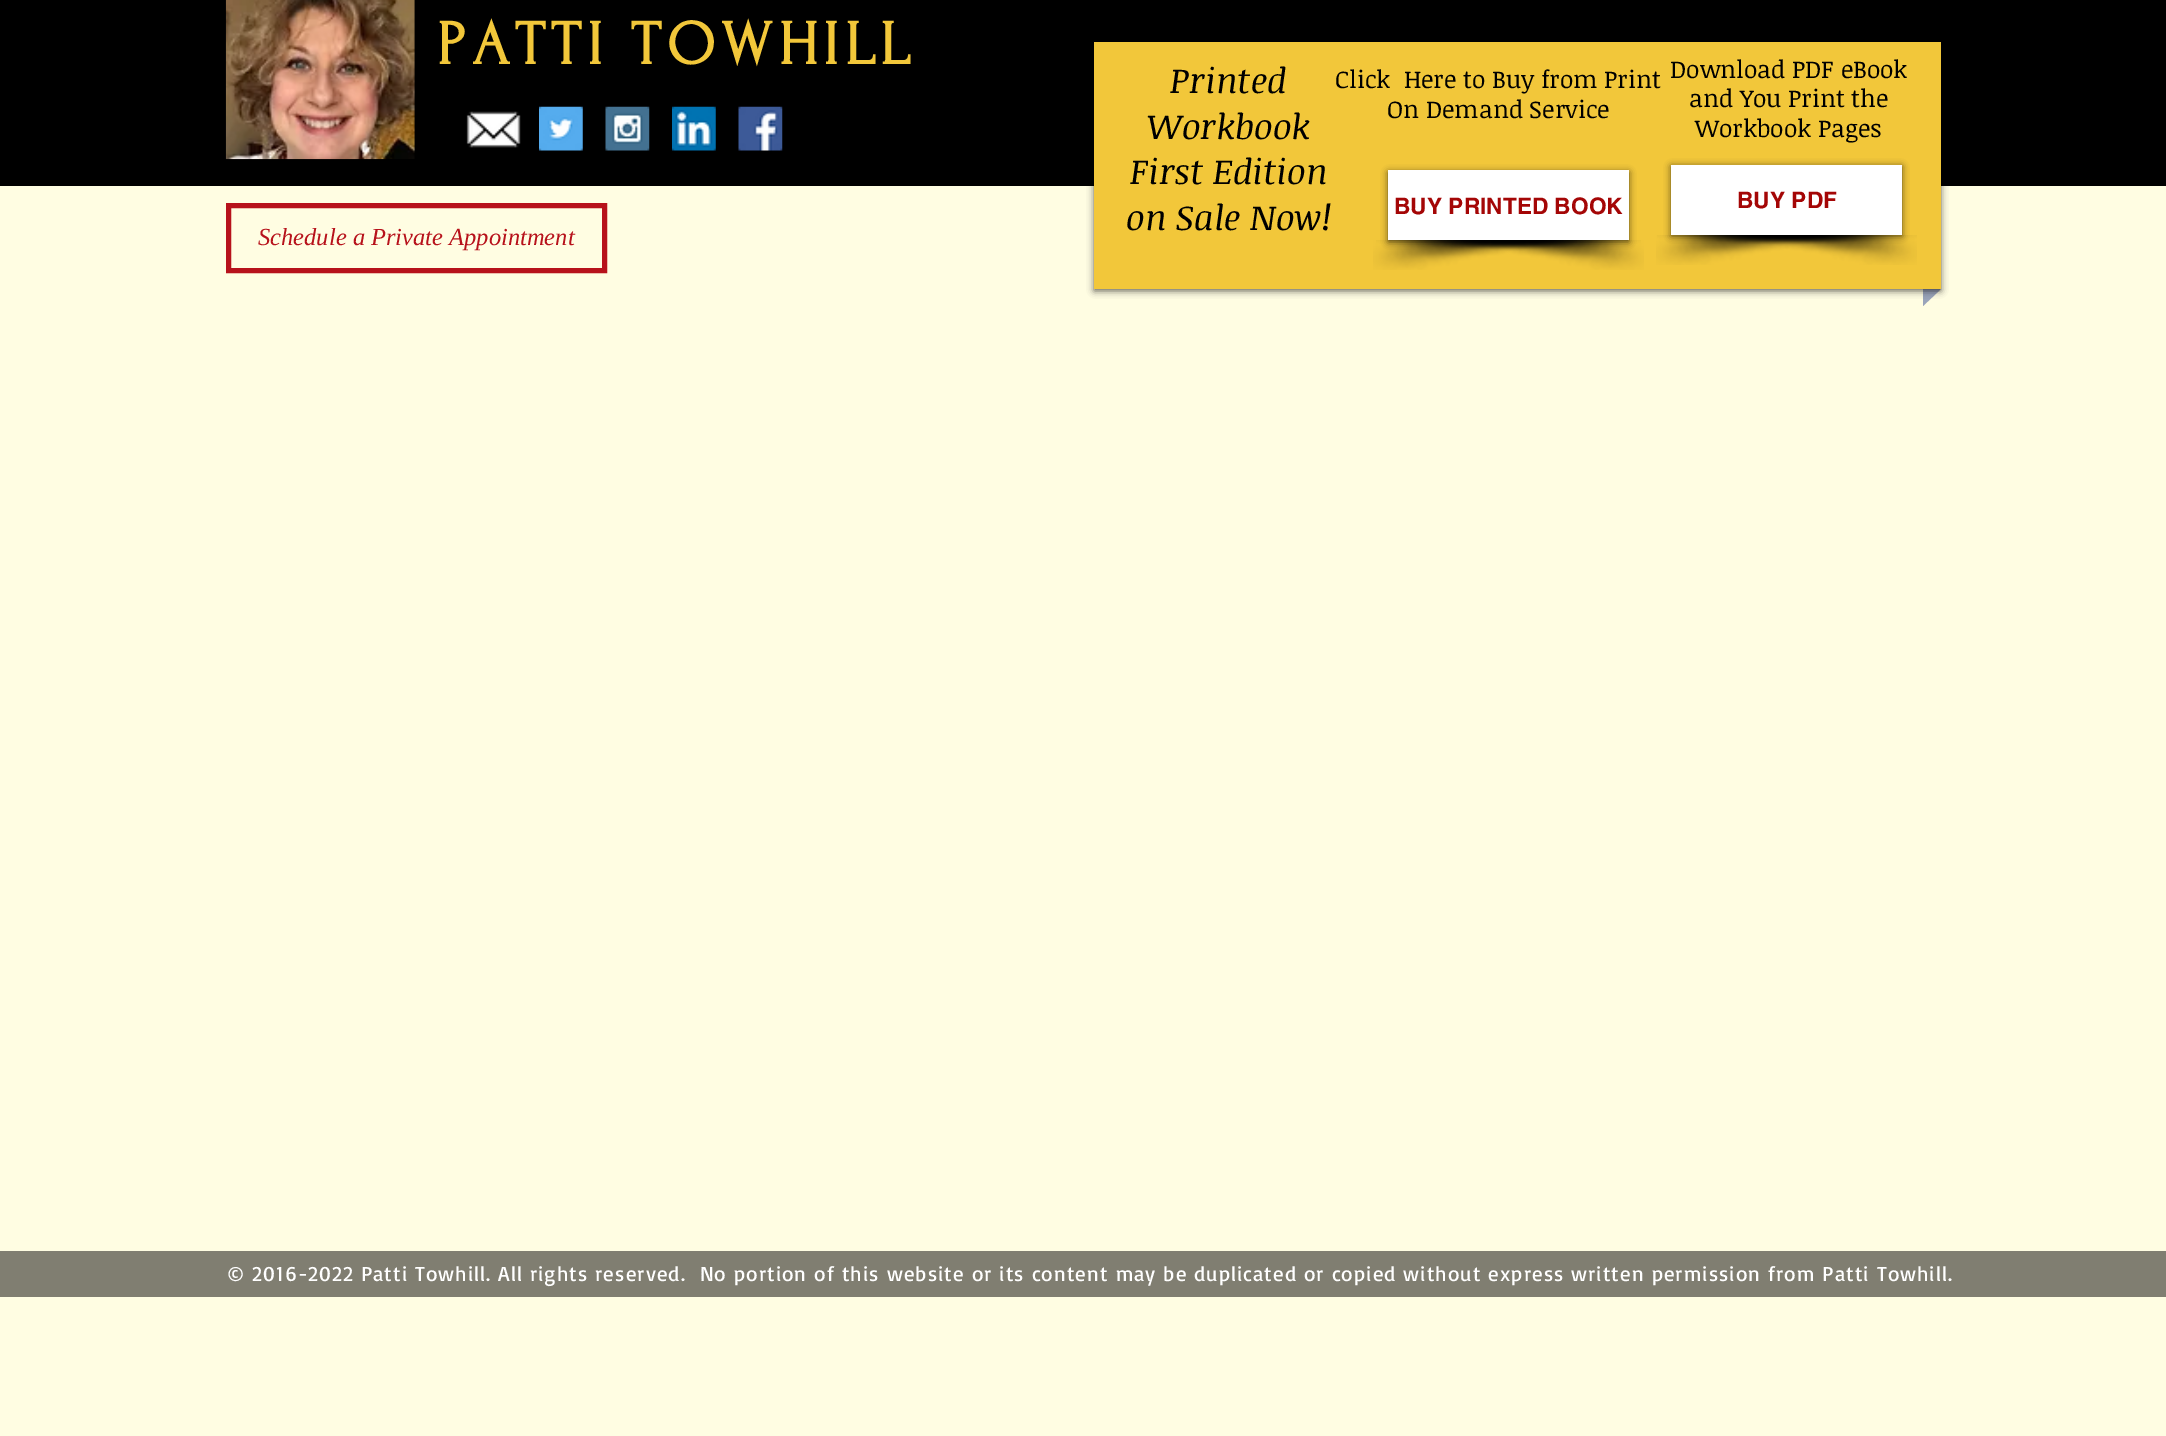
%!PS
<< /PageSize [2166 1436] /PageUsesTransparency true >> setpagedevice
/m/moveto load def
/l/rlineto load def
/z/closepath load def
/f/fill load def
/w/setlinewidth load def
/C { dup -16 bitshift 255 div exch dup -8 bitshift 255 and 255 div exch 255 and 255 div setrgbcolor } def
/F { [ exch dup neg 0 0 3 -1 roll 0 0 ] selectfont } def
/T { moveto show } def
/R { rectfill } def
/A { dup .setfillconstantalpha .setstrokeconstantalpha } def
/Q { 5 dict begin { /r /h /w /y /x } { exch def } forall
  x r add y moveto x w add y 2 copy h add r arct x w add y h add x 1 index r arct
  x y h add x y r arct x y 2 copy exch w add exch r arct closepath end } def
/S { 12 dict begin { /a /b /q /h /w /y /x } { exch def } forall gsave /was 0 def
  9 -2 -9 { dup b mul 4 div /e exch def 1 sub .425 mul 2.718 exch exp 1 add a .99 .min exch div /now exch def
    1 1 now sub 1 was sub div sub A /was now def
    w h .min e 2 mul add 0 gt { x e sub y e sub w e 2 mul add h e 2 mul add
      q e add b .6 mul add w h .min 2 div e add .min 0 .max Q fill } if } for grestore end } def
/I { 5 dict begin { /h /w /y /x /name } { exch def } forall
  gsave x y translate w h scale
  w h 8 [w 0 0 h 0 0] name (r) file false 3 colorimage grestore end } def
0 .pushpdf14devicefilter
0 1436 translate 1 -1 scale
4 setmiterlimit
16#FFFDE2 C
0 0 2166 1436 R
16#000000 C
0 0 2166 186 R
(1.rgb) 225 0 190 160 I
/Forum-Bold 63 F
16#F2C73A C
437 64 m 6.25 0 (PATTI TOWHILL) ashow
(2.rgb) 466 111 55 37 I
(3.rgb) 539 106 44 45 I
(4.rgb) 605 106 45 45 I
(5.rgb) 672 106 44 45 I
(6.rgb) 738 106 45 45 I
16#9AA4BA C
1923 289 m 18 0 l -18 17 l z f
16#000000 C
1094 44 847 247 0 3.5 .6 S
16#F2C73A C
1094 42 847 247 R
/NoticiaText-Italic 35 F
16#000000 C
(Printed) 1170 93 T
(Workbook) 1147 139 T
(First Edition) 1130 184 T
(on Sale Now!) 1126 230 T
/NoticiaText-Regular 24.5 F
(Click  Here to Buy from Print) 1335 88 T
(On Demand Service) 1387 118 T
(Download PDF eBook) 1670 78 T
(and You Print the) 1689 107 T
(Workbook Pages) 1695 137 T
(7.rgb) 1373 240 268 30 I
(8.rgb) 1376 240 268 30 I
1388 172 241 70 0 3.5 .6 S
16#FFFFFF C
1388 170 241 70 R
/helvetica-Bold 22.75 F
16#A40606 C
(BUY PRINTED BOOK) 1394 214 T
(9.rgb) 1656 235 261 30 I
(10.rgb) 1657 235 260 30 I
16#000000 C
1671 166 231 70 0 3.5 .6 S
16#FFFFFF C
1671 165 231 70 R
16#A40606 C
(BUY PDF) 1737 208 T
16#B7121B C
5 w
228.5 205.5 376 65 rectstroke
/LiberationSerif-Italic 24.5 F
(Schedule a Private Appointment) 258 245 T
16#807E71 C
0 1251 2166 46 R
/Basic-Regular 21 F
16#FFFFFF C
227 1281 m 1.05 0 (© 2016-2022 Patti Towhill. All rights reserved.  No portion of this website or its content may be duplicated or copied without express written permission from Patti Towhill.) ashow
.poppdf14devicefilter showpage
